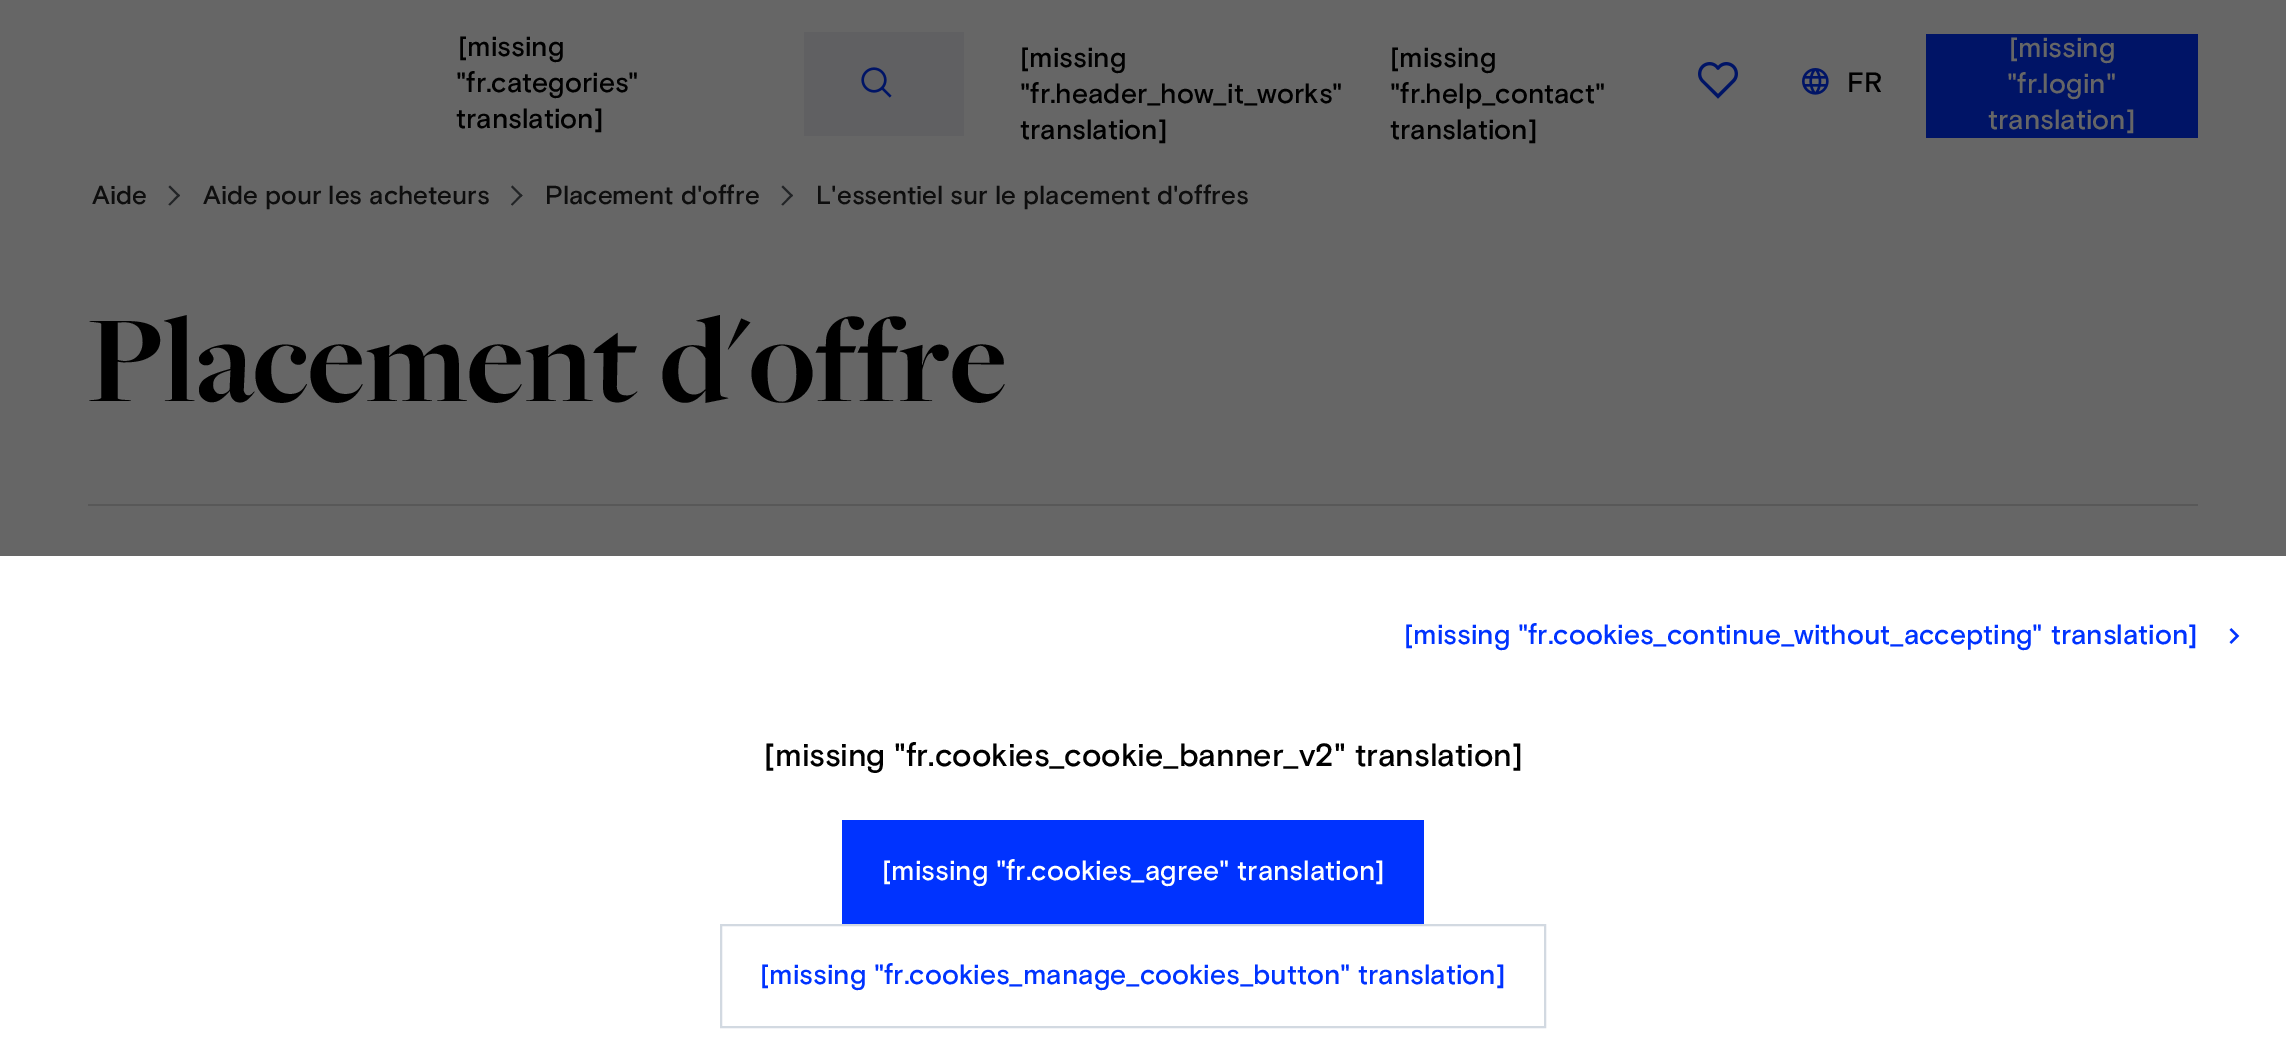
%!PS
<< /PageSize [2286 1060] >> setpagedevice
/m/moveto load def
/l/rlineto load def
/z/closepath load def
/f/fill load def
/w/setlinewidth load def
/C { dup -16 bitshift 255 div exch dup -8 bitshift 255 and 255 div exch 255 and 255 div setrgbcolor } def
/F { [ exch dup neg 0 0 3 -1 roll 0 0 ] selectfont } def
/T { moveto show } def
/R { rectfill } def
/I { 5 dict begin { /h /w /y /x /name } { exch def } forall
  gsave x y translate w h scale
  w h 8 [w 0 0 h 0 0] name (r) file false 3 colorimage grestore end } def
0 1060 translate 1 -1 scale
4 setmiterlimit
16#666666 C
0 0 2286 1060 R
/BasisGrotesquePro-Medium 28 F
16#000000 C
([missing) 458 56 T
("fr.categories") 456 92 T
(translation]) 456 128 T
16#606062 C
804 32 160 104 R
(1.rgb) 861 67 31 31 I
16#000000 C
([missing) 1020 67 T
("fr.header_how_it_works") 1020 103 T
(translation]) 1020 139 T
([missing) 1390 67 T
("fr.help_contact") 1390 103 T
(translation]) 1390 139 T
(2.rgb) 1698 62 40 37 I
(3.rgb) 1802 68 27 27 I
(FR) 1847 92 T
16#001466 C
1926 34 272 104 R
16#666666 C
([missing) 2009 57 T
("fr.login") 2007 93 T
(translation]) 1988 129 T
/BasisGrotesquePro-Medium 26 F
16#0E0E0E C
(Aide) 92 204 T
16#222426 C
170 185.5 m 10 10 l -1.5 1.5 l -10 -10 l z f
178.5 194 m 1.5 1.5 l -10 10 l -1.5 -1 l z f
16#0E0E0E C
(Aide pour les acheteurs) 203 204 T
16#222426 C
512.5 185.5 m 10 10 l -1.5 1.5 l -10 -10 l z f
521 194 m 1.5 1.5 l -10 10 l -1.5 -1 l z f
16#0E0E0E C
(Placement d'offre) 545 204 T
16#222426 C
783 185.5 m 10 10 l -1.5 1.5 l -10 -10 l z f
791.5 194 m 1.5 1.5 l -10 10 l -1.5 -1 l z f
16#0E0E0E C
(L'essentiel sur le placement d'offres) 816 204 T
16#585858 C
88 504 2110 2 R
/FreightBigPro-Bold 128 F
16#000000 C
(Placement d'offre) 88 401 T
16#FFFFFF C
0 556 2286 504 R
/BasisGrotesquePro-Medium 28 F
16#0033FF C
([missing "fr.cookies_continue_without_accepting" translation]) 1404 644 T
(4.rgb) 2229 628 11 16 I
/BasisGrotesquePro-Medium 32 F
16#000000 C
([missing "fr.cookies_cookie_banner_v2" translation]) 764 766 T
16#0033FF C
842 820 582 104 R
/BasisGrotesquePro-Medium 28 F
16#FFFFFF C
([missing "fr.cookies_agree" translation]) 882 880 T
16#D2D9E1 C
2 w
721 925 824 102 rectstroke
16#0033FF C
([missing "fr.cookies_manage_cookies_button" translation]) 760 984 T
showpage
